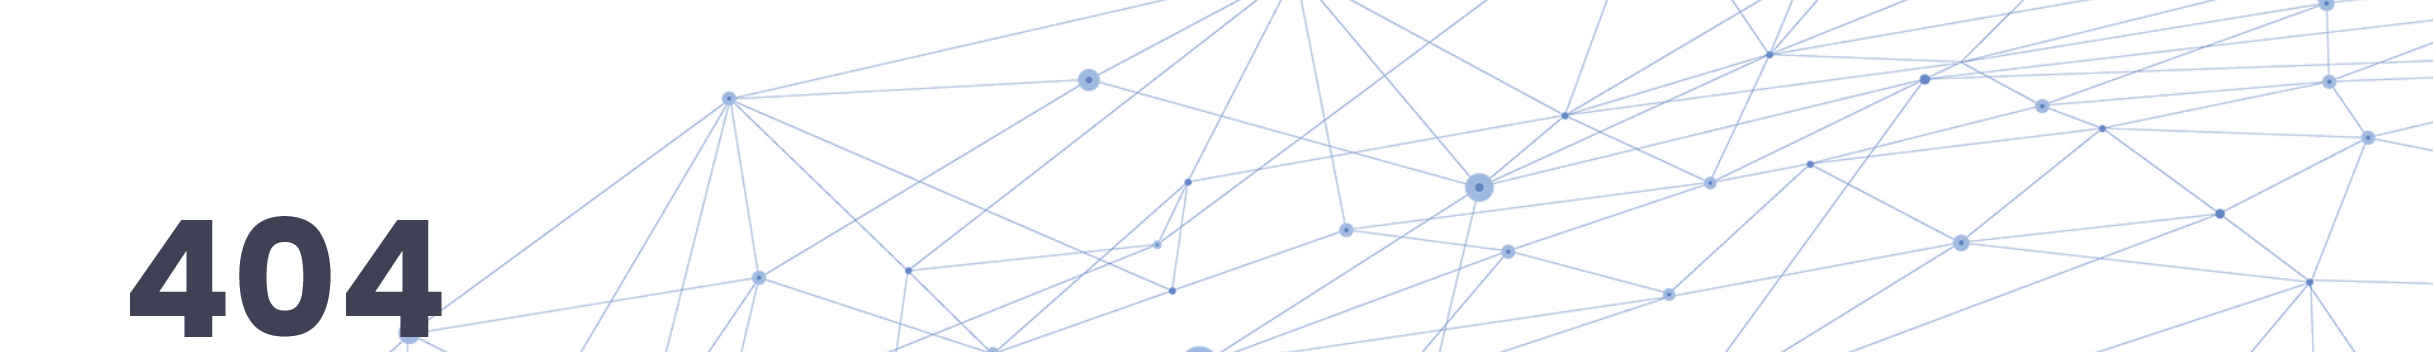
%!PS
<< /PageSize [2433 352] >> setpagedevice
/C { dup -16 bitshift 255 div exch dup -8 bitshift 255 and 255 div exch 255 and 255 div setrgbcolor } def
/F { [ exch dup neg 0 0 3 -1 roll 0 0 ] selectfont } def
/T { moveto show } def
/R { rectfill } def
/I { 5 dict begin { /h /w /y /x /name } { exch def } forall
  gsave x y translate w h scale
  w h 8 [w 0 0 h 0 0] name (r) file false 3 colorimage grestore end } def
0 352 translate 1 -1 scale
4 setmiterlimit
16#FFFFFF C
0 0 2433 352 R
(1.rgb) 0 0 2433 352 I
/Poppins-Bold 162.5 F
16#3F4254 C
(404) 122 337 T
showpage
